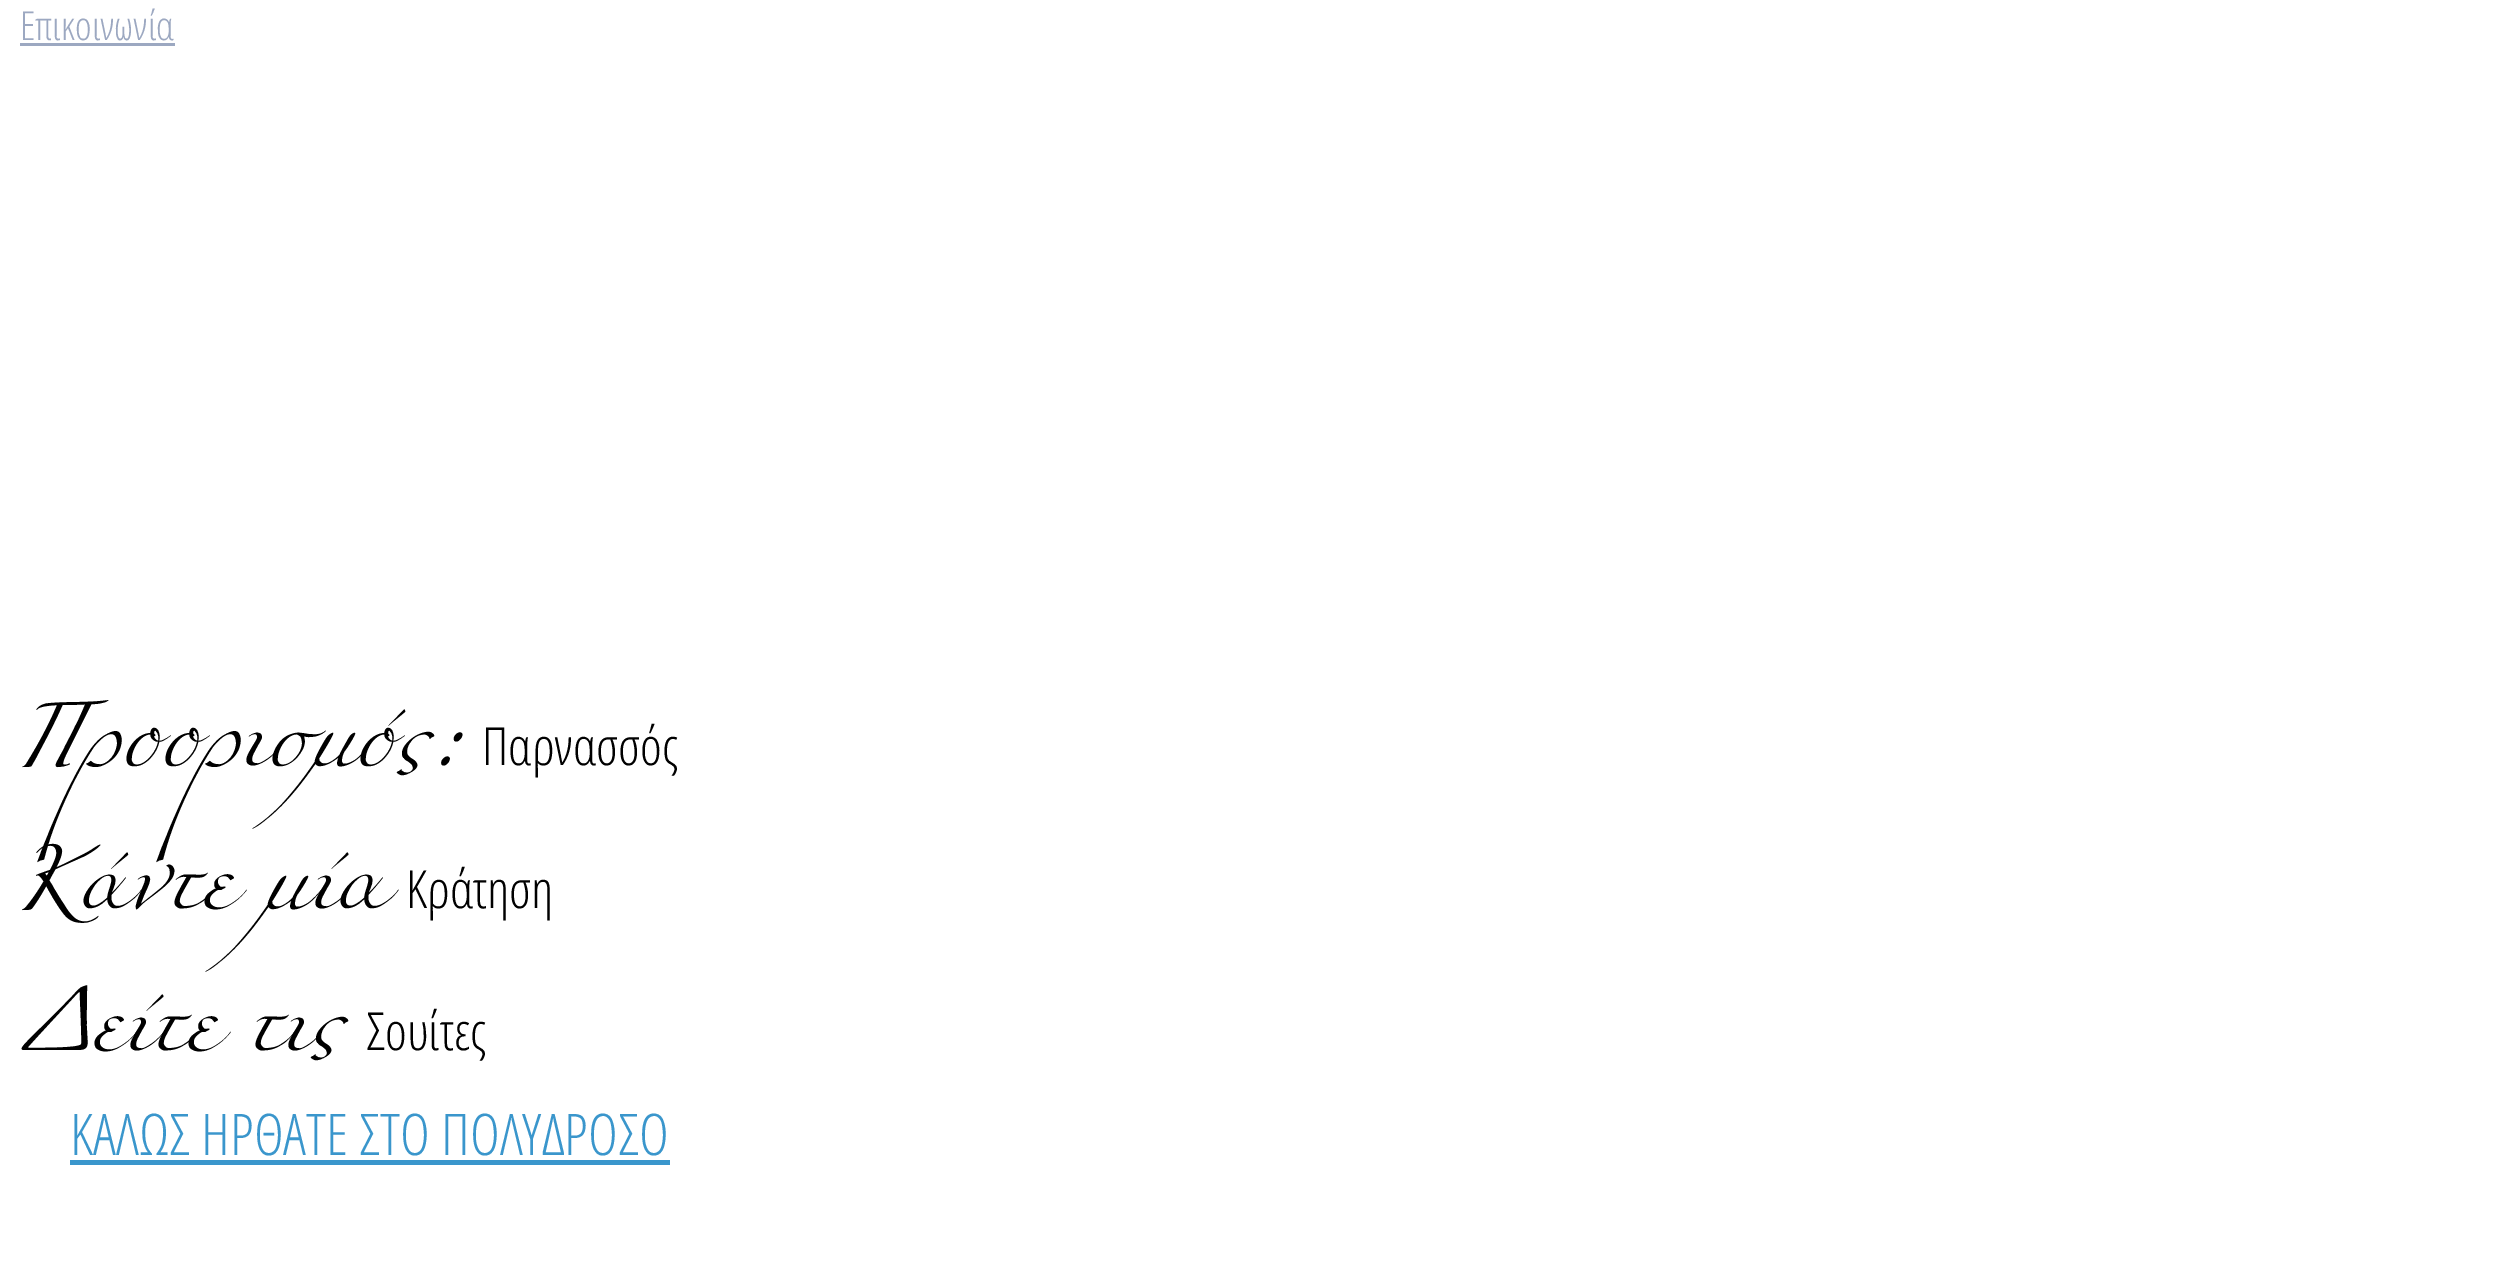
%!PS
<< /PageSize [2514 1262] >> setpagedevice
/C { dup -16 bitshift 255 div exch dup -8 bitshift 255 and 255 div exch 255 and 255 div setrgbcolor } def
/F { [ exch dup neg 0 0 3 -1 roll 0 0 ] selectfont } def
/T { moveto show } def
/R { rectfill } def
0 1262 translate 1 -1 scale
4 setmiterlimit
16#FFFFFF C
0 0 2514 1262 R
/OpenSansCondensed-Light 40 F
16#9CA8C1 C
(Επικοινωνία) 20 40 T
20 43 155 3 R
/Miama-Italic 72.5 F
16#000000 C
(Προορισμός:) 20 765 T
/OpenSansCondensed-Light 52.5 F
(Παρνασσός) 482 765 T
/Miama-Italic 72.5 F
(Κάντε μία) 20 908 T
/OpenSansCondensed-Light 52.5 F
(Κράτηση) 406 908 T
/Miama-Italic 72.5 F
(Δείτε τις) 20 1050 T
/OpenSansCondensed-Light 52.5 F
(Σουίτες) 366 1050 T
/OpenSansCondensed-Light 57.5 F
16#3A96CC C
(ΚΑΛΩΣ ΗΡΘΑΤΕ ΣΤΟ ΠΟΛΥΔΡΟΣΟ) 70 1155 T
70 1160 600 5 R
showpage
